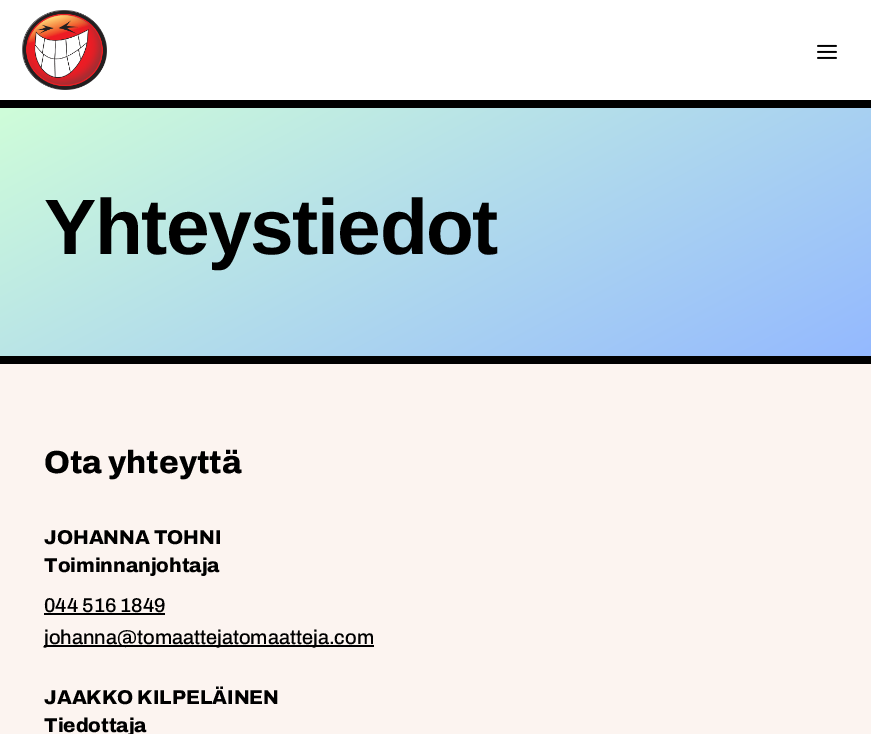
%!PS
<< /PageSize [871 734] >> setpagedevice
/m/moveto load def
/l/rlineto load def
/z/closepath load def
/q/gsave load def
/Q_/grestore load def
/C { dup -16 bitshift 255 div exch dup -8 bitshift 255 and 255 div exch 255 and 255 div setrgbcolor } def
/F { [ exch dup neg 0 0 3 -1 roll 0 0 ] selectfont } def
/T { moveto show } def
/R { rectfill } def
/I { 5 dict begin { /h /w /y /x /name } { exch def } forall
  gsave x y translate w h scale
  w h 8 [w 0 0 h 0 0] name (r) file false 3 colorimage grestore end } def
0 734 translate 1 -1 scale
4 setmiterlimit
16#FFFFFF C
0 0 871 734 R
(1.rgb) 22 10 85 80 I
(2.rgb) 817 44 20 15 I
q 0 108 m 871 0 l 0 248 l -871 0 l z clip newpath
<< /ShadingType 2 /ColorSpace /DeviceRGB /Coords [288 -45 583 509] /Extend [true true] /Function << /FunctionType 2 /Domain [0 1] /C0 [.812 .992 .851] /C1 [.58 .725 1] /N 1 >> >> shfill Q_
16#000000 C
0 100 871 8 R
0 356 871 8 R
/LiberationSans-Bold 78.5 F
44 254 m -1.5 0 (Yhteystiedot) ashow
16#FCF4F0 C
0 364 871 370 R
/Archivo-ExtraBold 32 F
16#000000 C
(Ota yhteyttä) 44 473 T
/Archivo-ExtraBold 20 F
(JOHANNA TOHNI) 44 544 T
(Toiminnanjohtaja) 44 572 T
/Archivo-Medium 20 F
(044 516 1849) 44 612 T
44 613 121 2 R
44 645 330 2 R
(johanna@tomaattejatomaatteja.com) 44 644 T
/Archivo-ExtraBold 20 F
(JAAKKO KILPELÄINEN) 44 704 T
(Tiedottaja) 44 732 T
showpage
